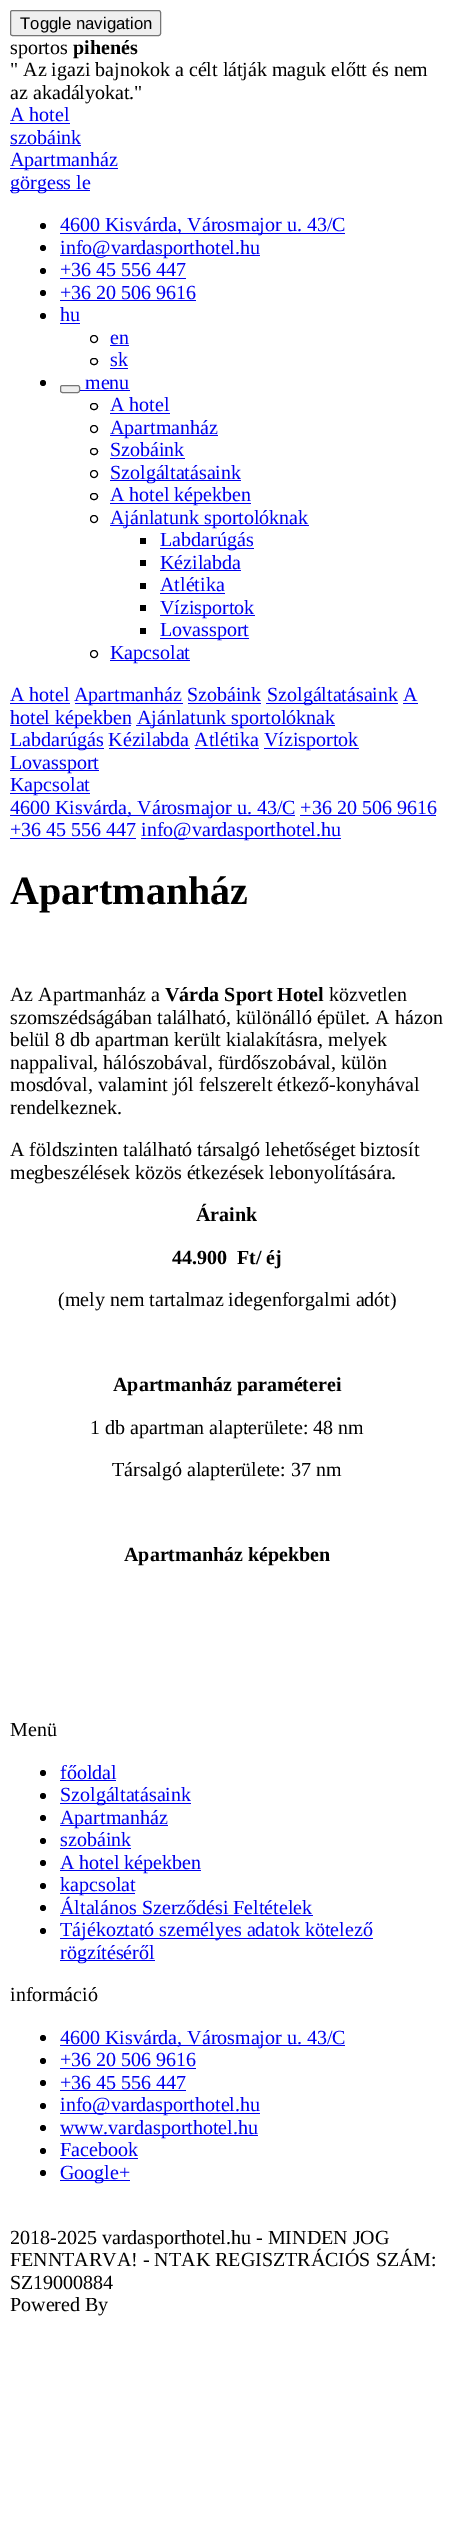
%!PS
<< /PageSize [453 2522] >> setpagedevice
/f/fill load def
/s/stroke load def
/q/gsave load def
/Q_/grestore load def
/C { dup -16 bitshift 255 div exch dup -8 bitshift 255 and 255 div exch 255 and 255 div setrgbcolor } def
/F { [ exch dup neg 0 0 3 -1 roll 0 0 ] selectfont } def
/T { moveto show } def
/R { rectfill } def
/O { newpath 0 360 arc closepath } def
/Q { 5 dict begin { /r /h /w /y /x } { exch def } forall
  x r add y moveto x w add y 2 copy h add r arct x w add y h add x 1 index r arct
  x y h add x y r arct x y 2 copy exch w add exch r arct closepath end } def
0 2522 translate 1 -1 scale
4 setmiterlimit
16#FFFFFF C
0 0 453 2522 R
16#EFEFEF C
10.5 10.5 150 25 2 Q q f Q_
16#767676 C
s
/LiberationSans-Regular 16.75 F
16#000000 C
(Toggle navigation) 20 29 T
/LiberationSerif-Regular 20 F
(sportos) 10 54 T
/LiberationSerif-Bold 20 F
(pihenés) 73 54 T
/LiberationSerif-Regular 20 F
(" Az igazi bajnokok a célt látják maguk előtt és nem) 10 76 T
(az akadályokat.") 10 99 T
16#0000EE C
(A hotel) 10 121 T
10 123 60 1 R
(szobáink) 10 144 T
10 145 71 1 R
10 168 108 1 R
(Apartmanház) 10 166 T
10 190 80 1 R
(görgess le) 10 189 T
16#000000 C
43 226 3 O f
16#0000EE C
60 233 285 1 R
(4600 Kisvárda, Városmajor u. 43/C) 60 231 T
16#000000 C
43 248 3 O f
16#0000EE C
60 255 200 1 R
(info@vardasporthotel.hu) 60 254 T
16#000000 C
43 271 3 O f
16#0000EE C
(+36 45 556 447) 60 276 T
60 278 126 1 R
16#000000 C
43 293 3 O f
16#0000EE C
(+36 20 506 9616) 60 299 T
60 300 136 1 R
16#000000 C
43 316 3 O f
16#0000EE C
(hu) 60 321 T
60 323 20 1 R
16#000000 C
94 339 3.5 O s
16#0000EE C
(en) 110 344 T
110 345 19 1 R
16#000000 C
90.5 358.5 7 6 3 Q s
16#0000EE C
(sk) 110 366 T
110 368 18 1 R
16#000000 C
43 383 3 O f
16#EFEFEF C
60.5 385.5 19 7 2 Q q f Q_
16#767676 C
s
16#0000EE C
(menu) 85 389 T
80 390 50 1 R
16#000000 C
90.5 403.5 7 6 3 Q s
16#0000EE C
(A hotel) 110 411 T
110 413 60 1 R
16#000000 C
94 429 3.5 O s
16#0000EE C
110 435 108 1 R
(Apartmanház) 110 434 T
16#000000 C
90.5 448.5 7 6 3 Q s
16#0000EE C
(Szobáink) 110 456 T
110 458 75 1 R
16#000000 C
94 474 3.5 O s
16#0000EE C
110 480 131 1 R
(Szolgáltatásaink) 110 479 T
16#000000 C
90.5 493.5 7 6 3 Q s
16#0000EE C
110 503 141 1 R
(A hotel képekben) 110 501 T
16#000000 C
94 519 3.5 O s
16#0000EE C
110 525 199 1 R
(Ajánlatunk sportolóknak) 110 524 T
16#000000 C
140 538 6 6 R
16#0000EE C
160 548 94 1 R
(Labdarúgás) 160 546 T
16#000000 C
140 560 6 6 R
16#0000EE C
(Kézilabda) 160 569 T
160 570 81 1 R
16#000000 C
140 583 6 6 R
16#0000EE C
(Atlétika) 160 591 T
160 593 65 1 R
16#000000 C
140 605 6 6 R
16#0000EE C
160 615 95 1 R
(Vízisportok) 160 614 T
16#000000 C
140 628 6 6 R
16#0000EE C
160 638 89 1 R
(Lovassport) 160 636 T
16#000000 C
94 654 3.5 O s
16#0000EE C
110 660 80 1 R
(Kapcsolat) 110 659 T
(A hotel) 10 701 T
10 703 60 1 R
75 703 108 1 R
(Apartmanház Szobáink) 74 701 T
266 703 132 1 R
(Szolgáltatásaink A) 267 701 T
188 703 73 1 R
10 725 121 1 R
(hotel képekben) 10 724 T
403 703 15 1 R
136 725 199 1 R
(Ajánlatunk sportolóknak) 137 724 T
10 748 94 1 R
(Labdarúgás Kézilabda Atlétika) 10 746 T
264 748 95 1 R
(Vízisportok) 264 746 T
109 748 81 1 R
195 748 64 1 R
10 770 89 1 R
(Lovassport) 10 769 T
10 793 80 1 R
(Kapcsolat) 10 791 T
10 815 285 1 R
(4600 Kisvárda, Városmajor u. 43/C +36 20 506 9616) 10 814 T
300 815 136 1 R
(+36 45 556 447) 10 836 T
10 838 126 1 R
141 838 200 1 R
(info@vardasporthotel.hu) 141 836 T
/LiberationSerif-Bold 40 F
16#000000 C
(Apartmanház) 10 904 T
/LiberationSerif-Regular 20 F
(Az Apartmanház a) 10 1001 T
/LiberationSerif-Bold 20 F
(Várda Sport Hotel) 165 1001 T
/LiberationSerif-Regular 20 F
(közvetlen) 329 1001 T
(szomszédságában található, különálló épület. A házon) 10 1024 T
(belül 8 db apartman került kialakításra, melyek) 10 1046 T
(nappalival, hálószobával, fürdőszobával, külön) 10 1069 T
(mosdóval, valamint jól felszerelt étkező-konyhával) 10 1091 T
(rendelkeznek.) 10 1114 T
(A földszinten található társalgó lehetőséget biztosít) 10 1156 T
(megbeszélések közös étkezések lebonyolítására.) 10 1179 T
/LiberationSerif-Bold 20 F
(Áraink) 196 1221 T
(44.900  Ft/ éj) 172 1264 T
/LiberationSerif-Regular 20 F
(\(mely nem tartalmaz idegenforgalmi adót\)) 58 1306 T
/LiberationSerif-Bold 20 F
(Apartmanház paraméterei) 113 1391 T
/LiberationSerif-Regular 20 F
(1 db apartman alapterülete: 48 nm) 90 1434 T
(Társalgó alapterülete: 37 nm) 112 1476 T
/LiberationSerif-Bold 20 F
(Apartmanház képekben) 124 1561 T
/LiberationSerif-Regular 20 F
(Menü) 10 1736 T
43 1773 3 O f
16#0000EE C
(főoldal) 60 1779 T
60 1780 56 1 R
16#000000 C
43 1796 3 O f
16#0000EE C
60 1803 131 1 R
(Szolgáltatásaink) 60 1801 T
16#000000 C
43 1818 3 O f
16#0000EE C
60 1825 108 1 R
(Apartmanház) 60 1824 T
16#000000 C
43 1841 3 O f
16#0000EE C
(szobáink) 60 1846 T
60 1848 71 1 R
16#000000 C
43 1863 3 O f
16#0000EE C
60 1870 141 1 R
(A hotel képekben) 60 1869 T
16#000000 C
43 1886 3 O f
16#0000EE C
60 1893 75 1 R
(kapcsolat) 60 1891 T
16#000000 C
43 1908 3 O f
16#0000EE C
(Általános Szerződési Feltételek) 60 1914 T
60 1915 253 1 R
16#000000 C
43 1931 3 O f
16#0000EE C
60 1938 313 1 R
(Tájékoztató személyes adatok kötelező) 60 1936 T
60 1960 95 1 R
(rögzítéséről) 60 1959 T
16#000000 C
(információ) 10 2001 T
43 2038 3 O f
16#0000EE C
60 2045 285 1 R
(4600 Kisvárda, Városmajor u. 43/C) 60 2044 T
16#000000 C
43 2061 3 O f
16#0000EE C
(+36 20 506 9616) 60 2066 T
60 2068 136 1 R
16#000000 C
43 2083 3 O f
16#0000EE C
(+36 45 556 447) 60 2089 T
60 2090 126 1 R
16#000000 C
43 2106 3 O f
16#0000EE C
60 2113 200 1 R
(info@vardasporthotel.hu) 60 2111 T
16#000000 C
43 2128 3 O f
16#0000EE C
60 2135 198 1 R
(www.vardasporthotel.hu) 60 2134 T
16#000000 C
43 2151 3 O f
16#0000EE C
(Facebook) 60 2156 T
60 2158 78 1 R
16#000000 C
43 2173 3 O f
16#0000EE C
60 2180 70 1 R
(Google+) 60 2179 T
16#000000 C
(2018-2025 vardasporthotel.hu - MINDEN JOG) 10 2244 T
(FENNTARVA! - NTAK REGISZTRÁCIÓS SZÁM:) 10 2266 T
(SZ19000884) 10 2289 T
(Powered By) 10 2311 T
showpage
